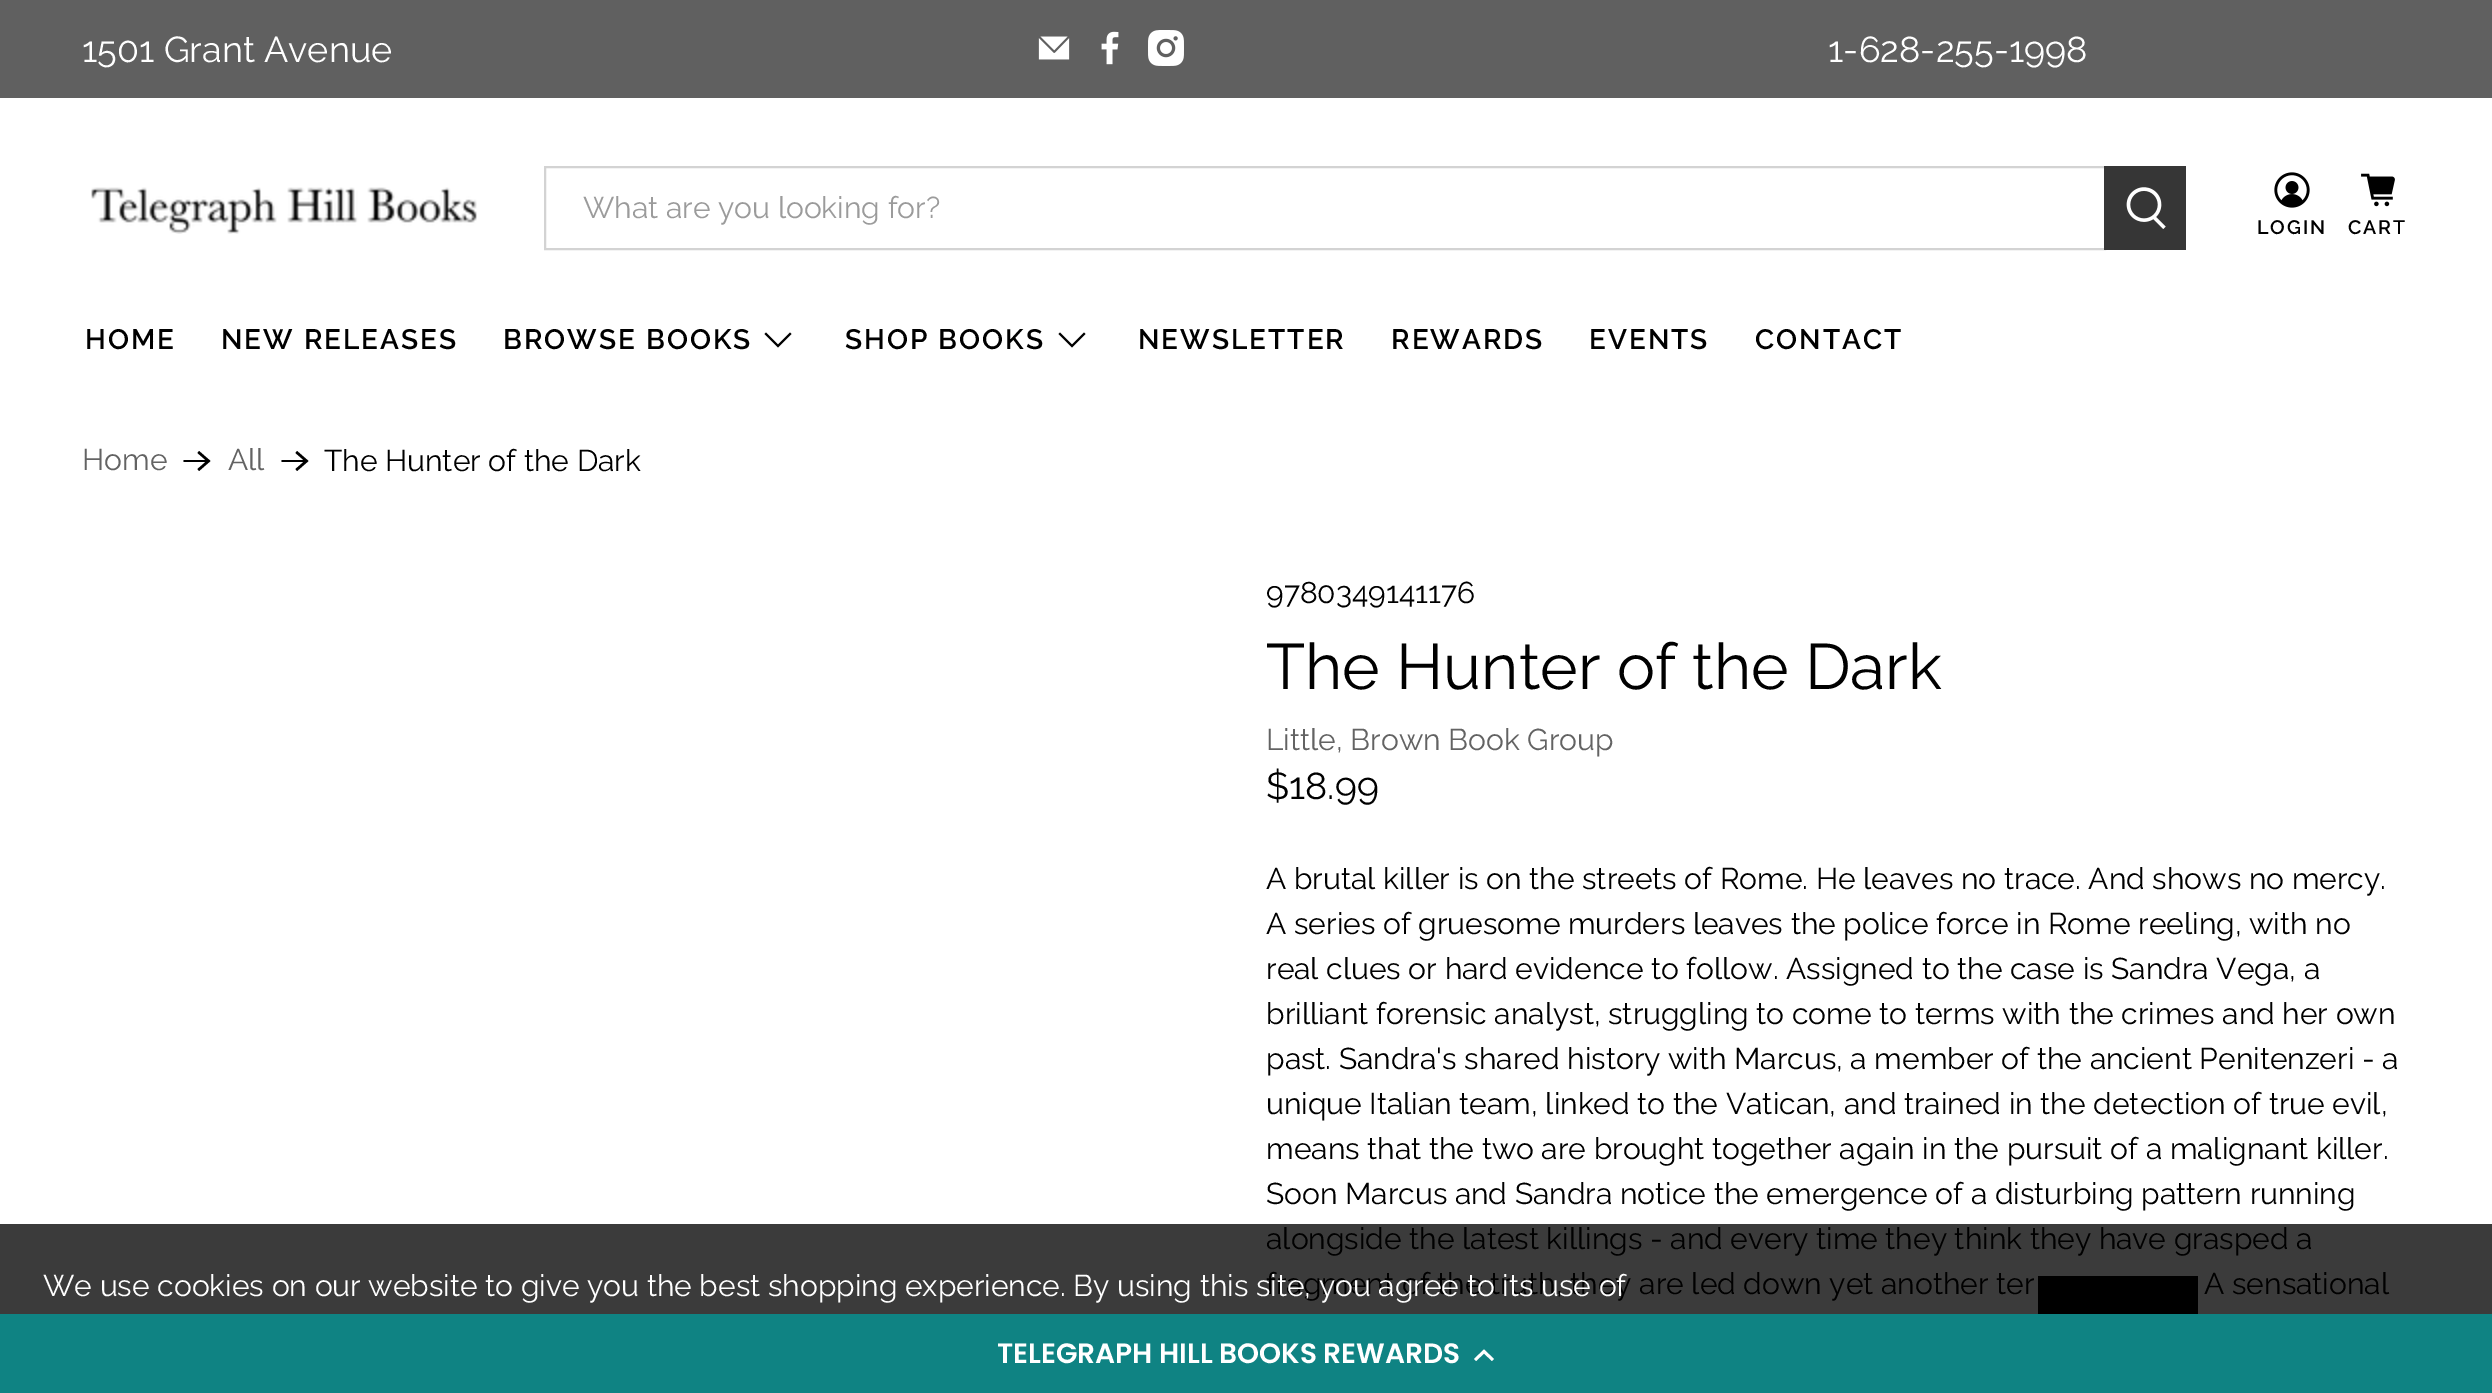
%!PS
<< /PageSize [2492 1393] >> setpagedevice
/m/moveto load def
/l/rlineto load def
/z/closepath load def
/f/fill load def
/w/setlinewidth load def
/C { dup -16 bitshift 255 div exch dup -8 bitshift 255 and 255 div exch 255 and 255 div setrgbcolor } def
/F { [ exch dup neg 0 0 3 -1 roll 0 0 ] selectfont } def
/T { moveto show } def
/R { rectfill } def
/I { 5 dict begin { /h /w /y /x /name } { exch def } forall
  gsave x y translate w h scale
  w h 8 [w 0 0 h 0 0] name (r) file false 3 colorimage grestore end } def
0 1393 translate 1 -1 scale
4 setmiterlimit
16#FFFFFF C
0 0 2492 1393 R
16#3B3B3B C
0 1224 2492 90 R
16#606060 C
0 0 2492 98 R
/Raleway-Regular 36 F
16#FFFFFF C
(1501 Grant Avenue) 82 62 T
(1.rgb) 1038 36 32 24 I
(2.rgb) 1101 31 18 34 I
(3.rgb) 1148 30 36 36 I
(1-628-255-1998) 1828 62 T
(4.rgb) 91 187 386 47 I
16#D3D3D3 C
2 w
545 167 1560 82 rectstroke
/Raleway-Regular 30 F
16#9B9B9B C
(What are you looking for?) 583 218 T
16#363636 C
2104 166 82 84 R
(5.rgb) 2126 187 40 42 I
(6.rgb) 2274 172 36 36 I
/Raleway-SemiBold 19.5 F
16#000000 C
2257 234 m 2 0 (LOGIN) ashow
(7.rgb) 2361 173 34 34 I
2348 234 m 2 0 (CART) ashow
/Raleway-SemiBold 28 F
85 349 m 2 0 (HOME) ashow
221 349 m 2 0 (NEW RELEASES) ashow
503 349 m 2 0 (BROWSE BOOKS) ashow
778 347.5 m -13.5 -13.5 l 1.5 -1.5 l 12 12 l 12 -12 l 1.5 1.5 l z f
845 349 m 2 0 (SHOP BOOKS) ashow
1072 347.5 m -13.5 -13.5 l 1.5 -1.5 l 12 12 l 12 -12 l 1.5 1.5 l z f
1138 349 m 2 0 (NEWSLETTER) ashow
1391 349 m 2 0 (REWARDS) ashow
1589 349 m 2 0 (EVENTS) ashow
1755 349 m 2 0 (CONTACT) ashow
/Raleway-Regular 30 F
16#636363 C
(Home) 82 470 T
16#000000 C
199 451 m -1.5 2 l 8 7 l -22 0 l 0 2 l 22 0 l -8 7 l 1.5 2 l 11.5 -10 l z f
16#636363 C
(All) 228 470 T
16#000000 C
297 451 m -1.5 2 l 8 7 l -22 0 l 0 2 l 22 0 l -8 7 l 1.5 2 l 11.5 -10 l z f
(The Hunter of the Dark) 324 471 T
(9780349141176) 1266 603 T
/Raleway-Regular 64 F
(The Hunter of the Dark) 1266 689 T
/Raleway-Regular 30 F
16#636363 C
(Little, Brown Book Group) 1266 750 T
/Raleway-Regular 37.5 F
16#000000 C
($18.99) 1266 799 T
/Raleway-Regular 30 F
(A brutal killer is on the streets of Rome. He leaves no trace. And shows no mercy.) 1266 889 T
(A series of gruesome murders leaves the police force in Rome reeling, with no) 1266 934 T
(real clues or hard evidence to follow. Assigned to the case is Sandra Vega, a) 1266 979 T
(brilliant forensic analyst, struggling to come to terms with the crimes and her own) 1266 1024 T
(past. Sandra's shared history with Marcus, a member of the ancient Penitenzeri - a) 1266 1069 T
(unique Italian team, linked to the Vatican, and trained in the detection of true evil,) 1266 1114 T
(means that the two are brought together again in the pursuit of a malignant killer.) 1266 1159 T
(Soon Marcus and Sandra notice the emergence of a disturbing pattern running) 1266 1204 T
(alongside the latest killings - and every time they think they have grasped a) 1266 1249 T
(fragment of the truth, they are led down yet another ter) 1266 1294 T
(A sensational) 2204 1294 T
16#FFFFFF C
(We use cookies on our website to give you the best shopping experience. By using this site, you agree to its use of) 43 1296 T
16#000000 C
2038 1276 160 38 R
16#0F8383 C
0 1314 2492 79 R
/Poppins-SemiBold 28 F
16#FFFFFF C
(TELEGRAPH HILL BOOKS REWARDS) 997 1363 T
1484 1353.5 m -8 7.5 l -2 -2 l 10 -9.5 l 10 9.5 l -2 2 l z f
showpage
